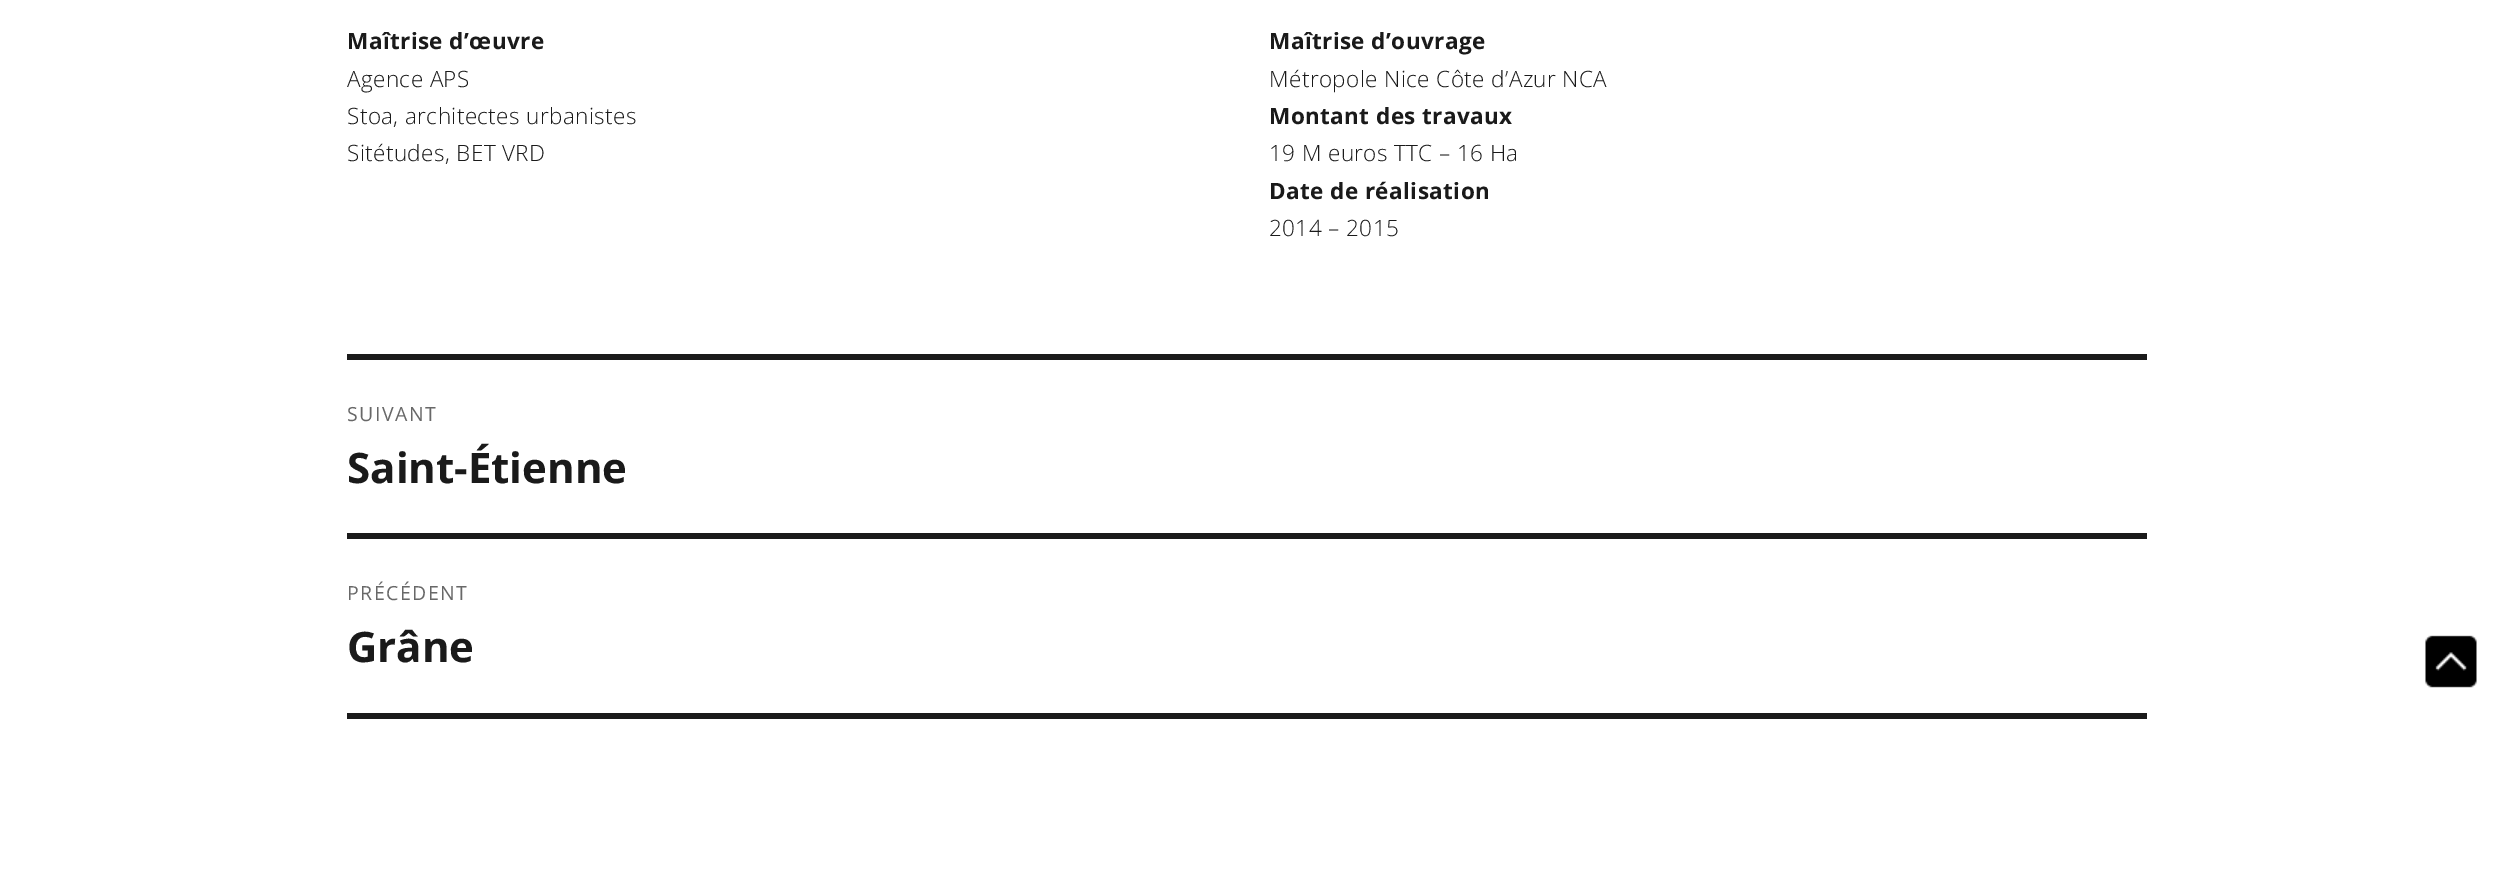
%!PS
<< /PageSize [2493 894] >> setpagedevice
/m/moveto load def
/C { dup -16 bitshift 255 div exch dup -8 bitshift 255 and 255 div exch 255 and 255 div setrgbcolor } def
/F { [ exch dup neg 0 0 3 -1 roll 0 0 ] selectfont } def
/T { moveto show } def
/R { rectfill } def
/I { 5 dict begin { /h /w /y /x /name } { exch def } forall
  gsave x y translate w h scale
  w h 8 [w 0 0 h 0 0] name (r) file false 3 colorimage grestore end } def
0 894 translate 1 -1 scale
4 setmiterlimit
16#FFFFFF C
0 0 2493 894 R
/OpenSans-Bold 22.5 F
16#1A1A1A C
347 49 m .4 0 (Maîtrise d’œuvre) ashow
/OpenSans-Light 22.5 F
347 87 m .4 0 (Agence APS) ashow
347 124 m .4 0 (Stoa, architectes urbanistes) ashow
347 161 m .4 0 (Sitétudes, BET VRD) ashow
/OpenSans-Bold 22.5 F
1269 49 m .4 0 (Maîtrise d’ouvrage) ashow
/OpenSans-Light 22.5 F
1269 87 m .4 0 (Métropole Nice Côte d’Azur NCA) ashow
/OpenSans-Bold 22.5 F
1269 124 m .4 0 (Montant des travaux) ashow
/OpenSans-Light 22.5 F
1269 161 m .4 0 (19 M euros TTC – 16 Ha) ashow
/OpenSans-Bold 22.5 F
1269 199 m .4 0 (Date de réalisation) ashow
/OpenSans-Light 22.5 F
1269 236 m .4 0 (2014 – 2015) ashow
347 354 1800 6 R
347 713 1800 6 R
/OpenSans-Regular 19.5 F
16#686868 C
347 421 m 1.5 0 (SUIVANT) ashow
/OpenSans-Bold 42 F
16#1A1A1A C
(Saint-Étienne) 347 483 T
347 533 1800 6 R
/OpenSans-Regular 19.5 F
16#686868 C
347 600 m 1.5 0 (PRÉCÉDENT) ashow
/OpenSans-Bold 42 F
16#1A1A1A C
(Grâne) 347 662 T
16#FFFFFF C
383 31 1001 1 R
(1.rgb) 2425 635 52 53 I
showpage
